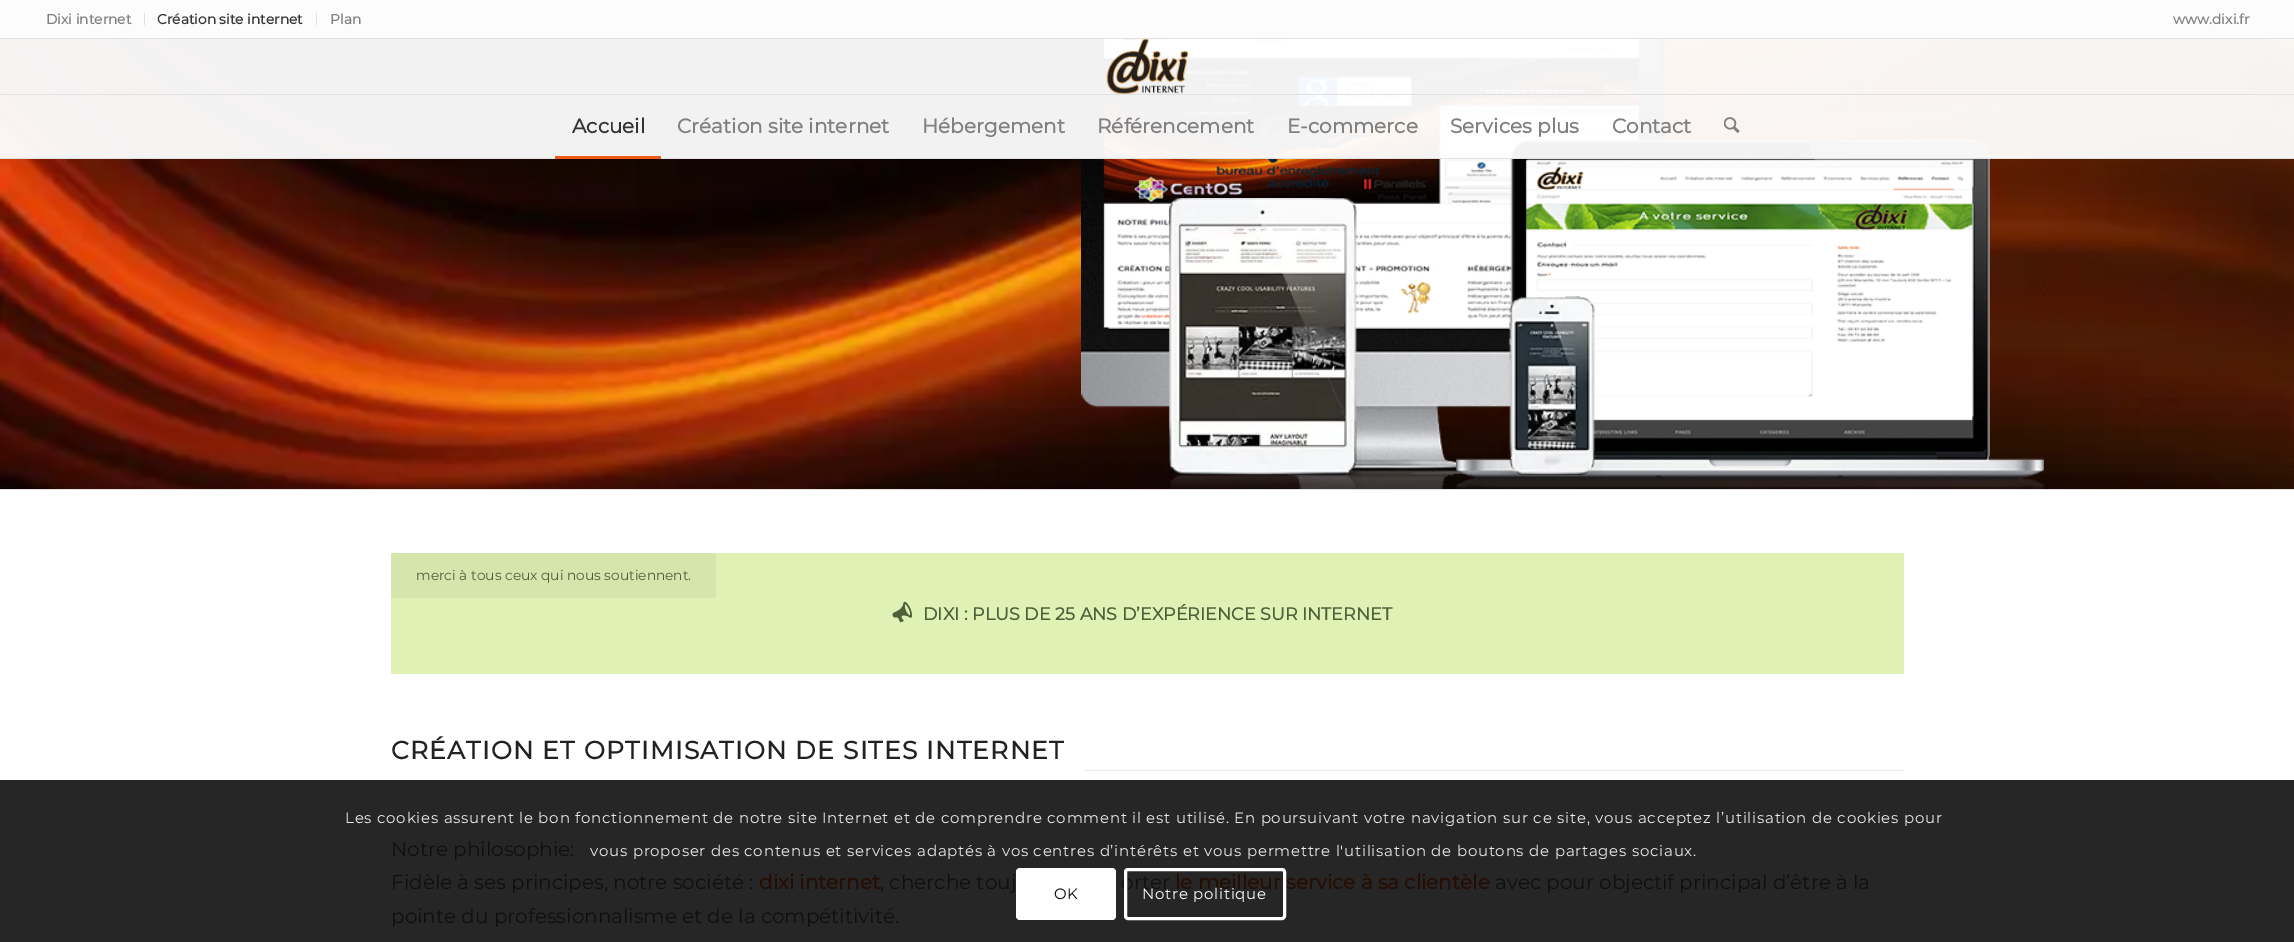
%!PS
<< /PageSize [2294 942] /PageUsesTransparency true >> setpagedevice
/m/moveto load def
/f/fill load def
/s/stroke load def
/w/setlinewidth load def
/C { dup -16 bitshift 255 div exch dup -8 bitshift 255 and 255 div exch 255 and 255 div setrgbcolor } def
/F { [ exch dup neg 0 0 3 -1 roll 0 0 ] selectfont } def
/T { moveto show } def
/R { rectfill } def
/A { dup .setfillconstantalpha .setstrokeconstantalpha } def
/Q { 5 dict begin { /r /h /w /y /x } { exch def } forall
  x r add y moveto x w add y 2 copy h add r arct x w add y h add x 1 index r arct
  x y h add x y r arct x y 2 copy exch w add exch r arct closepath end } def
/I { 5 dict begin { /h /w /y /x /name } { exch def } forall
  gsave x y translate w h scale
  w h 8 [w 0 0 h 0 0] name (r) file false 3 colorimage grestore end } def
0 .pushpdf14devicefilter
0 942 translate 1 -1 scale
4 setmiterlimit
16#FFFFFF C
0 0 2294 942 R
16#262626 C
0 780 2294 162 R
16#FCFCFC C
0 0 2294 38 R
16#E1E1E1 C
0 38 2294 1 R
144 13 1 12 R
/Montserrat-Bold 13.75 F
16#808080 C
(Dixi internet) 46 24 T
16#E1E1E1 C
316 13 1 12 R
16#333333 C
(Création site internet) 157 24 T
16#808080 C
(Plan) 330 24 T
(www.dixi.fr) 2173 24 T
(3.rgb) 0 39 2294 450 I
(4.rgb) 1081 39 583 450 I
(5.rgb) 1456 140 588 349 I
0.95 A
16#FFFFFF C
0 39 2294 119 R
1 A
16#E1E1E1 C
0 158 2294 1 R
(1.rgb) 1106 39 82 55 I
0 94 2294 1 R
/Montserrat-Bold 20 F
16#333333 C
(Accueil) 572 133 T
16#F05A1A C
555 156 106 3 R
16#808080 C
(Création site internet) 677 133 T
(Hébergement) 922 133 T
(Référencement) 1097 133 T
(E-commerce) 1287 133 T
(Services plus) 1450 133 T
(Contact) 1612 133 T
(2.rgb) 1724 117 16 16 I
(6.rgb) 1167 198 195 291 I
(7.rgb) 1500 296 103 180 I
16#E1E1E1 C
0 489 2294 1 R
16#E0F1B5 C
391 553 1513 121 R
16#D5E5AC C
391 553 325 45 R
/Montserrat-Thin 13.75 F
16#4F5F39 C
(merci à tous ceux qui nous soutiennent.) 416 580 T
(8.rgb) 892 601 21 22 I
/Montserrat-Bold 17.5 F
(DIXI : PLUS DE 25 ANS D’EXPÉRIENCE SUR INTERNET) 923 620 T
/Montserrat-Bold 25 F
16#222222 C
391 759 m 1.25 0 (CRÉATION ET OPTIMISATION DE SITES INTERNET) ashow
16#E8E8E8 C
1084 770 820 1 R
/Montserrat-Thin 20 F
16#0F0F0F C
(Notre philosophie:) 391 856 T
(Fidèle à ses principes, notre société :) 391 889 T
/Montserrat-Bold 20 F
16#240E04 C
(dixi internet) 759 889 T
/Montserrat-Thin 20 F
16#0F0F0F C
(, cherche touj) 880 889 T
(orter) 1121 889 T
/Montserrat-Bold 20 F
16#240E04 C
(le meilleur service à sa clientèle) 1175 889 T
/Montserrat-Thin 20 F
16#0F0F0F C
(avec pour objectif principal d’être à la) 1495 889 T
(pointe du professionnalisme et de la compétitivité.) 391 923 T
/Montserrat-Thin 15 F
16#E9E9E9 C
345 823 m .75 0 (Les cookies assurent le bon fonctionnement de notre site Internet et de comprendre comment il est utilisé. En poursuivant votre navigation sur ce site, vous acceptez l’utilisation de cookies pour) ashow
590 856 m .75 0 (vous proposer des contenus et services adaptés à vos centres d’intérêts et vous permettre l'utilisation de boutons de partages sociaux.) ashow
16#FFFFFF C
1016 868 100 52 4 Q f
16#000000 C
1054 899 m .75 0 (OK) ashow
16#FFFFFF C
3 w
1125.5 869.5 159 49 2.5 Q s
1142 899 m .75 0 (Notre politique) ashow
.poppdf14devicefilter showpage
